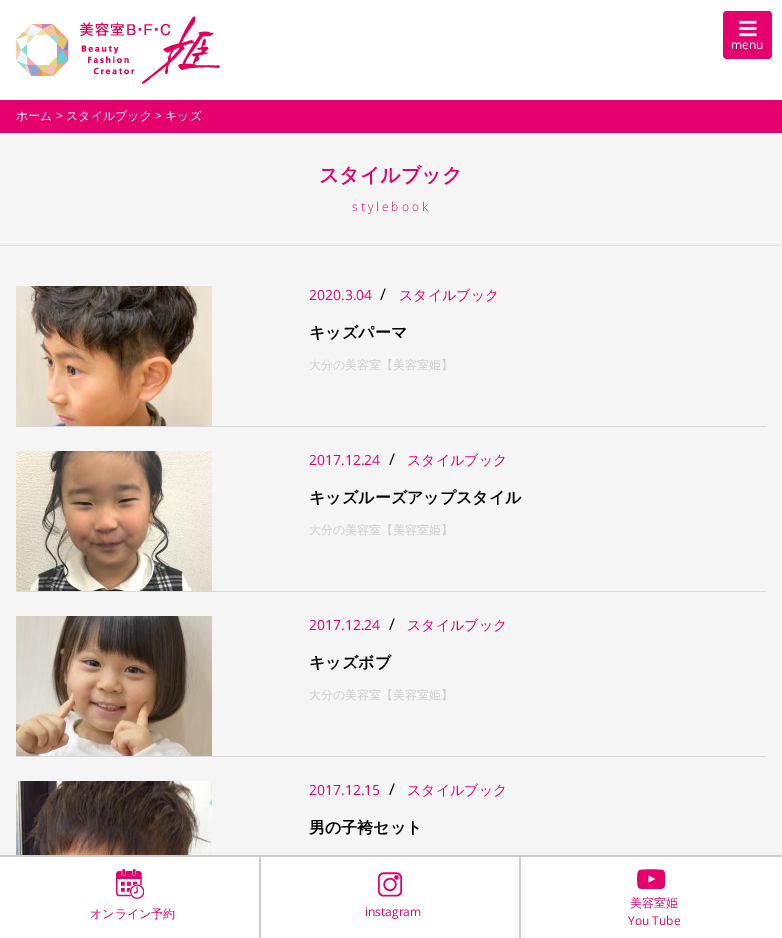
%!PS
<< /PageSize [782 938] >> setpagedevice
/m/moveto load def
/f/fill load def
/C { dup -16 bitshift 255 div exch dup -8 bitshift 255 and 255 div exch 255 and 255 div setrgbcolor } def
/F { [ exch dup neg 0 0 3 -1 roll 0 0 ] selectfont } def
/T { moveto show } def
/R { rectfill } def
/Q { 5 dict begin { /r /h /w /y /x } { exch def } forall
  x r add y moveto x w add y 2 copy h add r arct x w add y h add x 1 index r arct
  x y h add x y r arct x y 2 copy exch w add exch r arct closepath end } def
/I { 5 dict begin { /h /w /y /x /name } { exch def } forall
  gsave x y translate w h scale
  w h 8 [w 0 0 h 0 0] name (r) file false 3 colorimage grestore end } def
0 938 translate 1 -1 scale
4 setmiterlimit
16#FFFFFF C
0 0 782 938 R
(1.rgb) 16 16 204 68 I
16#E5006E C
723 11 49 48 4 Q f
(2.rgb) 739 20 18 17 I
/OpenSans-Regular 12 F
16#FFFFFF C
(menu) 731 49 T
16#E5006E C
0 100 782 33 R
/WenQuanYiZenHei-Medium 12 F
16#FFFFFF C
(ホーム) 16 120 T
/OpenSans-Regular 12 F
(>) 56 120 T
/WenQuanYiZenHei-Medium 12 F
(スタイルブック) 66 120 T
/OpenSans-Regular 12 F
(>) 155 120 T
/WenQuanYiZenHei-Medium 12 F
(キッズ) 165 120 T
16#F5F5F5 C
0 133 782 722 R
16#D9D9D9 C
0 245 782 1 R
/WenQuanYiZenHei-Bold 20 F
16#E5006E C
(スタイルブック) 319 182 T
/OpenSans-Light 12 F
352 211 m 3 0 (stylebook) ashow
16#FFFFFF C
0 246 782 1 R
16#D9D9D9 C
16 426 750 1 R
(3.rgb) 16 286 196 140 I
/OpenSans-Regular 14 F
16#E5006E C
(2020.3.04) 309 300 T
/OpenSans-Regular 16 F
16#000000 C
(/) 380 300 T
/WenQuanYiZenHei-Medium 14 F
16#E5006E C
(スタイルブック) 399 300 T
/WenQuanYiZenHei-Bold 16 F
16#000000 C
(キッズパーマ) 309 338 T
/WenQuanYiZenHei-Medium 12 F
16#CCCCCC C
(大分の美容室【美容室姫】) 309 369 T
16#D9D9D9 C
16 591 750 1 R
(4.rgb) 16 451 196 140 I
/OpenSans-Regular 14 F
16#E5006E C
(2017.12.24) 309 465 T
/OpenSans-Regular 16 F
16#000000 C
(/) 389 465 T
/WenQuanYiZenHei-Medium 14 F
16#E5006E C
(スタイルブック) 407 465 T
/WenQuanYiZenHei-Bold 16 F
16#000000 C
(キッズルーズアップスタイル) 309 503 T
/WenQuanYiZenHei-Medium 12 F
16#CCCCCC C
(大分の美容室【美容室姫】) 309 534 T
16#D9D9D9 C
16 756 750 1 R
(5.rgb) 16 616 196 140 I
/OpenSans-Regular 14 F
16#E5006E C
(2017.12.24) 309 630 T
/OpenSans-Regular 16 F
16#000000 C
(/) 389 630 T
/WenQuanYiZenHei-Medium 14 F
16#E5006E C
(スタイルブック) 407 630 T
/WenQuanYiZenHei-Bold 16 F
16#000000 C
(キッズボブ) 309 668 T
/WenQuanYiZenHei-Medium 12 F
16#CCCCCC C
(大分の美容室【美容室姫】) 309 699 T
(6.rgb) 16 781 196 74 I
/OpenSans-Regular 14 F
16#E5006E C
(2017.12.15) 309 795 T
/OpenSans-Regular 16 F
16#000000 C
(/) 389 795 T
/WenQuanYiZenHei-Medium 14 F
16#E5006E C
(スタイルブック) 407 795 T
/WenQuanYiZenHei-Bold 16 F
16#000000 C
(男の子袴セット) 309 833 T
16#CCCCCC C
0 855 782 2 R
259 857 2 81 R
(7.rgb) 116 869 28 30 I
/WenQuanYiZenHei-Medium 12 F
16#E5006E C
(オンライン予約) 90 918 T
16#CCCCCC C
519 857 2 81 R
(8.rgb) 378 872 24 25 I
/OpenSans-Regular 12 F
16#E5006E C
(instagram) 365 916 T
(9.rgb) 637 869 28 20 I
/WenQuanYiZenHei-Medium 12 F
(美容室姫) 630 907 T
/OpenSans-Regular 12 F
(You Tube) 628 925 T
showpage
